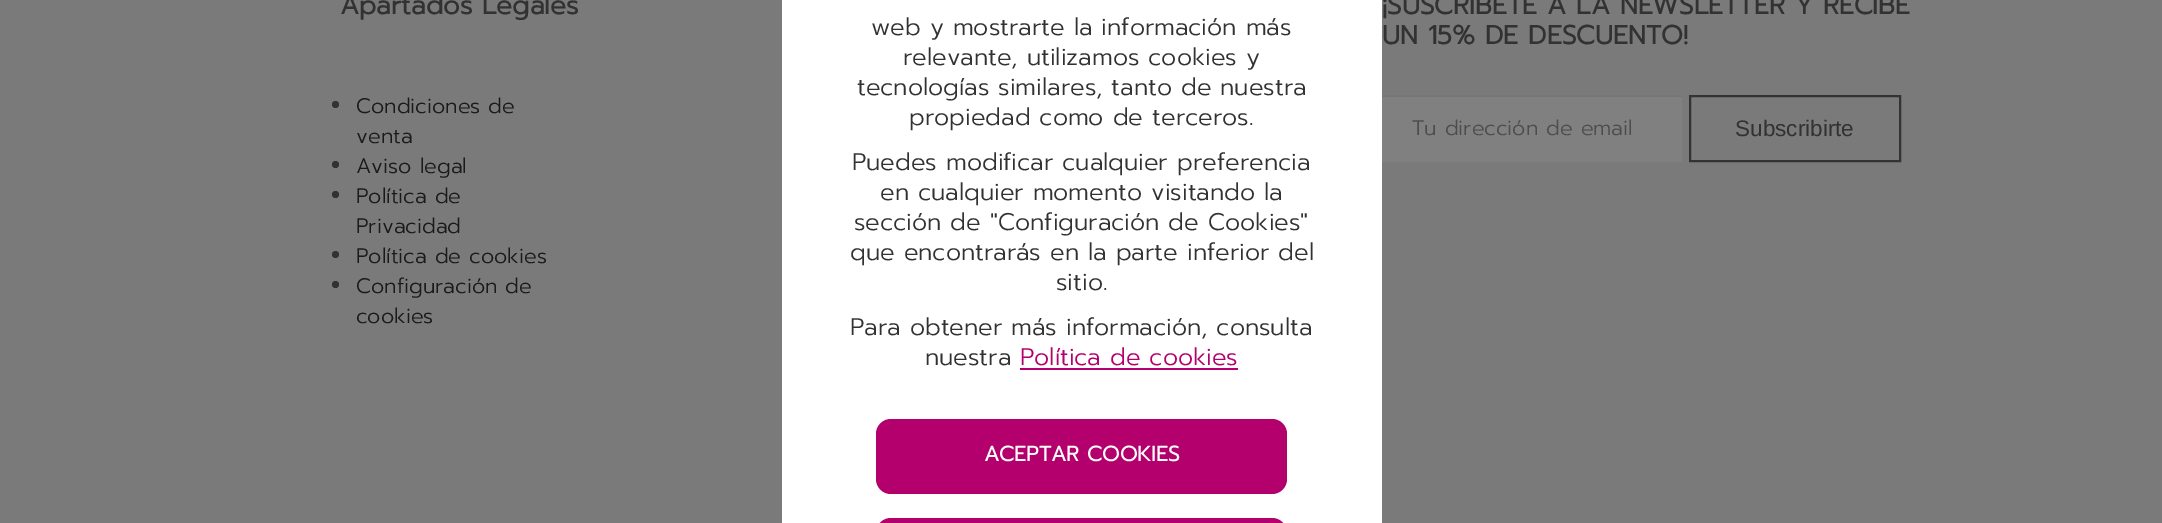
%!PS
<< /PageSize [2162 523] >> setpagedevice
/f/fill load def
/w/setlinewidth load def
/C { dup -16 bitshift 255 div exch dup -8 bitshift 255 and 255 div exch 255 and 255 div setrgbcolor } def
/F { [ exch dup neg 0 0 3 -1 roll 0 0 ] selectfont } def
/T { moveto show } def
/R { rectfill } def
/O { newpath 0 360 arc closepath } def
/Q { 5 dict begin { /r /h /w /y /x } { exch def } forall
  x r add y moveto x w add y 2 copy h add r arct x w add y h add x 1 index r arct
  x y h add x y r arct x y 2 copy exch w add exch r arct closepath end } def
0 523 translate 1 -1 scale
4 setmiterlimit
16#7A7A7A C
0 0 2162 523 R
/Prompt-Bold 26.25 F
16#323232 C
(Apartados Legales) 340 14 T
335.5 104.5 3.5 O f
/Prompt-Light 21 F
16#1A1A1A C
(Condiciones de) 356 113 T
(venta) 356 143 T
16#323232 C
335.5 164.5 3.5 O f
16#1A1A1A C
(Aviso legal) 356 173 T
16#323232 C
335.5 194.5 3.5 O f
16#1A1A1A C
(Política de) 356 203 T
(Privacidad) 356 233 T
16#323232 C
335.5 254.5 3.5 O f
16#1A1A1A C
(Política de cookies) 356 263 T
16#323232 C
335.5 284.5 3.5 O f
16#1A1A1A C
(Configuración de) 356 293 T
(cookies) 356 323 T
/Prompt-Bold 26.25 F
16#323232 C
(¡SUSCRÍBETE A LA NEWSLETTER Y RECIBE) 1382 14 T
(UN 15% DE DESCUENTO!) 1382 44 T
16#808080 C
1382 97 300 65 R
16#767676 C
1382 95 300 2 R
/Prompt-Light 21 F
16#4D4D4D C
(Tu dirección de email) 1412 135 T
16#323335 C
2 w
1690 96 210 65 rectstroke
/LiberationSans-Regular 22.5 F
16#323232 C
(Subscribirte) 1735 136 T
16#FFFFFF C
782 0 600 523 R
/Prompt-Light 24 F
16#323232 C
(web y mostrarte la información más) 871 35 T
(relevante, utilizamos cookies y) 903 65 T
(tecnologías similares, tanto de nuestra) 857 95 T
(propiedad como de terceros.) 909 125 T
(Puedes modificar cualquier preferencia) 852 170 T
(en cualquier momento visitando la) 880 200 T
(sección de "Configuración de Cookies") 854 230 T
(que encontrarás en la parte inferior del) 850 260 T
(sitio.) 1056 290 T
(Para obtener más información, consulta) 850 335 T
(nuestra) 925 365 T
16#B4006C C
(Política de cookies) 1020 365 T
1020 368 218 2 R
876 419 411 75 15 Q f
/Prompt-Bold 21 F
16#FFFFFF C
(ACEPTAR COOKIES) 984 461 T
16#B4006C C
876 518 411 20 15 Q f
showpage
